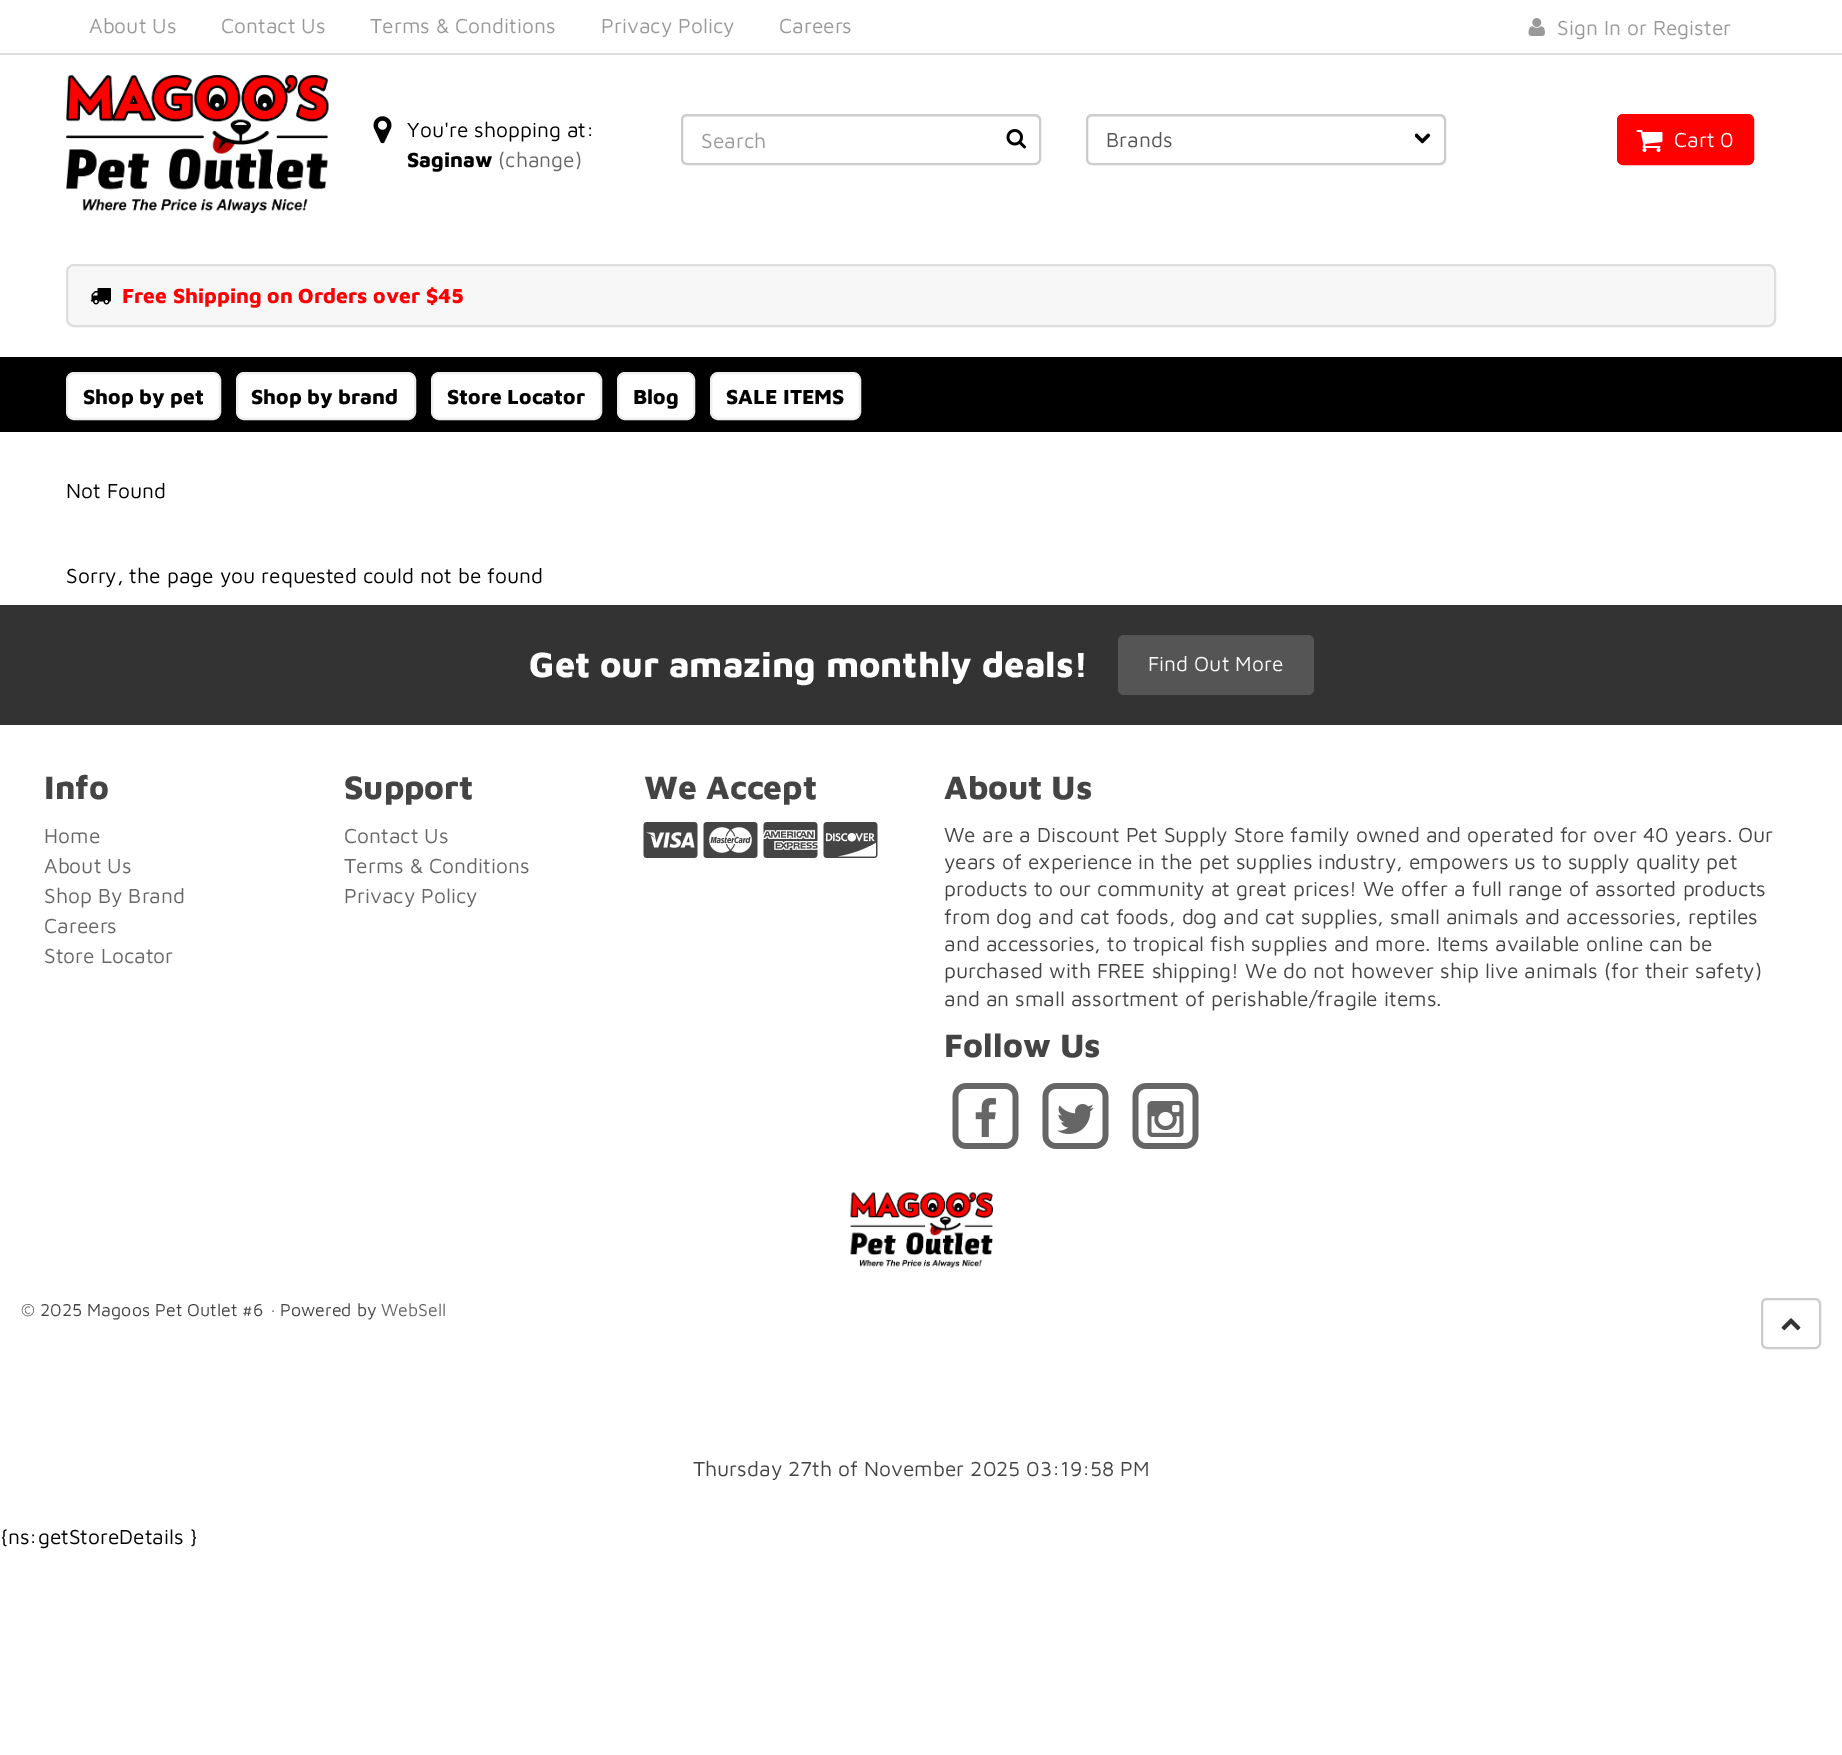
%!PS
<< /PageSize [1842 1755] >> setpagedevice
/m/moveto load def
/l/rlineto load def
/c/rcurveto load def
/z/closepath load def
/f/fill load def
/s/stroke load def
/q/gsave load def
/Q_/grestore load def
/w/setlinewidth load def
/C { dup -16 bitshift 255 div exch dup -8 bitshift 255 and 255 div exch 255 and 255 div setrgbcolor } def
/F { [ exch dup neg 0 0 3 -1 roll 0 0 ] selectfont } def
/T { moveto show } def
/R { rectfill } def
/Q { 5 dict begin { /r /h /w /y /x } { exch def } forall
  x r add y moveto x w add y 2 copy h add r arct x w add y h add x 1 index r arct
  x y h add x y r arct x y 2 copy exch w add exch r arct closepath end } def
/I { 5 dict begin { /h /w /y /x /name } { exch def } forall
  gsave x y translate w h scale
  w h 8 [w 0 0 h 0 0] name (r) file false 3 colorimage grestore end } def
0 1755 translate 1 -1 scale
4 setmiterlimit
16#FFFFFF C
0 0 1842 1755 R
16#DDDDDD C
0 53 1842 2 R
/MavenPro-Regular 21 F
16#999999 C
(About Us) 89 33 T
(Contact Us) 221 33 T
(Terms & Conditions) 370 33 T
(Privacy Policy) 601 33 T
(Careers) 779 33 T
(1.rgb) 1528 18 17 18 I
(Sign In or Register) 1557 35 T
(2.rgb) 66 75 263 138 I
(3.rgb) 373 116 19 28 I
16#000000 C
(You're shopping at:) 407 137 T
/MavenPro-ExtraBold 21 F
(Saginaw) 407 167 T
/MavenPro-Regular 21 F
16#666666 C
(\(change\)) 498 167 T
16#ECECEC C
687 117 m 348 0 l 2 0 5 2 5 5 c 0 -1 l 0 -3 -2 -5 -5 -5 c -347 0 l -2 0 -3 1 -4 2 c z f
16#CCCCCC C
2 w
682 115 358 49 5 Q s
16#999999 C
(Search) 701 148 T
(4.rgb) 1006 129 20 20 I
(5.rgb) 1415 133 16 11 I
16#ECECEC C
1092 117 m 348 0 l 2 0 4 2 4 5 c 0 38 l -1 3 l 1 -1 2 -3 2 -4 c 0 -38 l 0 -3 -2 -5 -5 -5 c -347 0 l -3 0 -5 2 -5 5 c 0 1 l 0 -3 2 -5 4 -5 c z f
16#CCCCCC C
1087 115 358 49 5 Q s
16#555555 C
(Brands) 1106 147 T
16#FF0000 C
1618 115 135 49 5 Q q f Q_
s
(6.rgb) 1636 130 27 22 I
16#FFFFFF C
(Cart 0) 1674 147 T
16#F7F7F7 C
67 265 1708 61 7 Q q f Q_
16#DDDDDD C
s
(7.rgb) 90 288 21 17 I
/MavenPro-ExtraBold 21 F
16#FF0000 C
(Free Shipping on Orders over $45) 122 303 T
16#000000 C
0 357 1842 75 R
16#FFFFFF C
67 373 153 46 7 Q q f Q_
16#EEEEEE C
s
16#000000 C
(Shop by pet) 83 404 T
16#FFFFFF C
237 373 178 46 7 Q q f Q_
16#EEEEEE C
s
16#000000 C
(Shop by brand) 251 404 T
16#FFFFFF C
432 373 169 46 7 Q q f Q_
16#EEEEEE C
s
16#000000 C
(Store Locator) 447 404 T
16#FFFFFF C
618 373 76 46 7 Q q f Q_
16#EEEEEE C
s
16#000000 C
(Blog) 633 404 T
16#FFFFFF C
711 373 149 46 7 Q q f Q_
16#EEEEEE C
s
16#000000 C
(SALE ITEMS) 726 404 T
/MavenPro-Regular 21 F
(Not Found) 66 498 T
(Sorry, the page you requested could not be found) 66 583 T
16#333333 C
0 605 1842 120 R
/MavenPro-ExtraBold 36 F
16#FFFFFF C
(Get our amazing monthly deals!) 529 677 T
16#555555 C
1118 635 196 60 6 Q f
/MavenPro-Regular 21 F
16#FFFFFF C
(Find Out More) 1148 671 T
/MavenPro-ExtraBold 33.5 F
16#444444 C
(Info) 44 799 T
/MavenPro-Regular 21 F
16#666666 C
(Home) 44 843 T
(About Us) 44 873 T
(Shop By Brand) 44 903 T
(Careers) 44 933 T
(Store Locator) 44 963 T
/MavenPro-ExtraBold 33.5 F
16#444444 C
(Support) 344 799 T
/MavenPro-Regular 21 F
16#666666 C
(Contact Us) 344 843 T
(Terms & Conditions) 344 873 T
(Privacy Policy) 344 903 T
/MavenPro-ExtraBold 33.5 F
16#444444 C
(We Accept) 644 799 T
(8.rgb) 643 822 55 36 I
(9.rgb) 703 822 55 36 I
(10.rgb) 763 822 55 36 I
(11.rgb) 823 822 55 36 I
(About Us) 944 799 T
/MavenPro-Regular 21 F
(We are a Discount Pet Supply Store family owned and operated for over 40 years. Our) 944 842 T
(years of experience in the pet supplies industry, empowers us to supply quality pet) 944 869 T
(products to our community at great prices! We offer a full range of assorted products) 944 896 T
(from dog and cat foods, dog and cat supplies, small animals and accessories, reptiles) 944 924 T
(and accessories, to tropical fish supplies and more. Items available online can be) 944 951 T
(purchased with FREE shipping! We do not however ship live animals \(for their safety\)) 944 978 T
(and an small assortment of perishable/fragile items.) 944 1006 T
/MavenPro-ExtraBold 33.5 F
(Follow Us) 944 1057 T
(12.rgb) 952 1083 67 66 I
(13.rgb) 975 1098 21 39 I
(12.rgb) 1042 1083 67 66 I
(14.rgb) 1057 1104 37 30 I
(12.rgb) 1132 1083 67 66 I
(15.rgb) 1147 1101 37 36 I
(16.rgb) 850 1192 143 76 I
/MavenPro-Regular 17.8 F
(© 2025 Magoos Pet Outlet #6) 21 1316 T
/MavenPro-Italic 17.8 F
(·) 269 1316 T
/MavenPro-Regular 17.8 F
(Powered by) 280 1316 T
16#666666 C
(WebSell) 381 1316 T
16#CCCCCC C
1762 1299 58 49 5 Q s
(17.rgb) 1781 1318 20 13 I
/MavenPro-Regular 21 F
16#444444 C
(Thursday 27th of November 2025 03:19:58 PM) 693 1476 T
16#000000 C
({ns:getStoreDetails }) 0 1544 T
showpage
